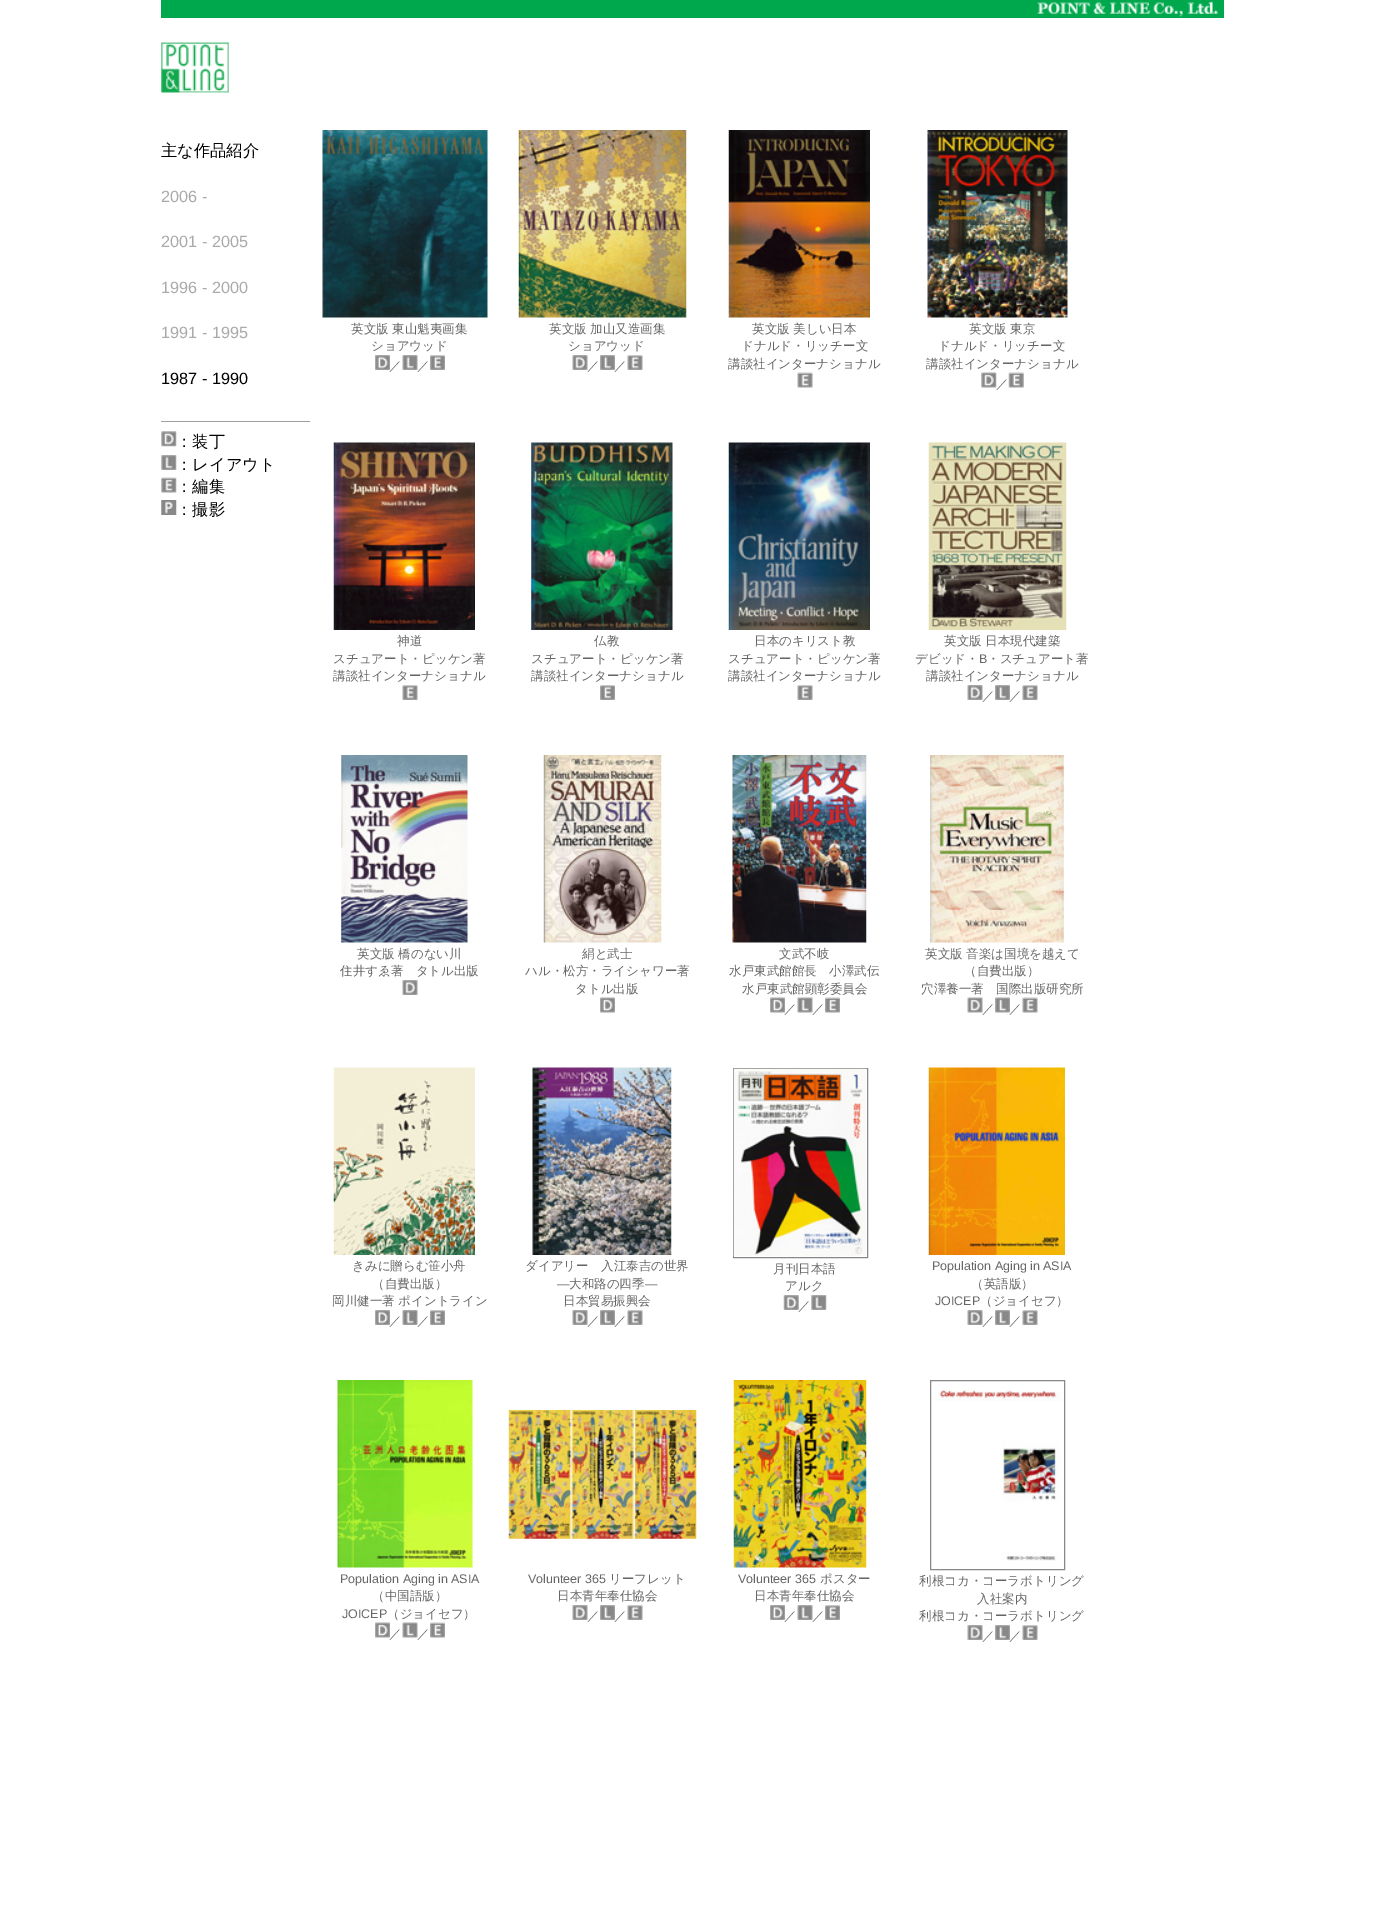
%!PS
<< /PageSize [1383 1906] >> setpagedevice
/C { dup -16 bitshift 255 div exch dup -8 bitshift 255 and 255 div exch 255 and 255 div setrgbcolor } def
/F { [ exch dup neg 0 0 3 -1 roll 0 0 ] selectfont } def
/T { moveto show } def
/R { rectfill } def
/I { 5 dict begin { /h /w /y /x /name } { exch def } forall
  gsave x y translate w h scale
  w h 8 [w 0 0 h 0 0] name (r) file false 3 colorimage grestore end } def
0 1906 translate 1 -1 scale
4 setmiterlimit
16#FFFFFF C
0 0 1383 1906 R
16#00A84D C
161 0 1063 18 R
(1.rgb) 1037 1 181 16 I
(2.rgb) 161 42 68 51 I
/WenQuanYiZenHei-Medium 16.25 F
16#000000 C
(主な作品紹介) 161 156 T
/LiberationSans-Regular 16.25 F
16#AAAAAA C
(2006 -) 161 202 T
(2001 - 2005) 161 247 T
(1996 - 2000) 161 293 T
(1991 - 1995) 161 338 T
16#000000 C
(1987 - 1990) 161 384 T
16#9F9F9F C
161 421 150 1 R
16#EEEEEE C
310 421 1 1 R
(3.rgb) 161 431 16 16 I
/WenQuanYiZenHei-Medium 16.25 F
16#000000 C
(：装丁) 176 447 T
(4.rgb) 161 455 16 15 I
(：レイアウト) 176 470 T
(5.rgb) 161 477 16 16 I
(：編集) 176 492 T
(6.rgb) 161 500 16 15 I
(：撮影) 176 515 T
(7.rgb) 322 130 166 188 I
/WenQuanYiZenHei-Medium 12.5 F
16#666666 C
(英文版 東山魁夷画集) 351 333 T
(ショアウッド) 371 350 T
(8.rgb) 375 355 15 15 I
(／) 389 370 T
(9.rgb) 402 355 16 15 I
(／) 417 370 T
(10.rgb) 430 355 15 15 I
(11.rgb) 518 130 169 188 I
(英文版 加山又造画集) 549 333 T
(ショアウッド) 568 350 T
(12.rgb) 572 355 16 15 I
(／) 587 370 T
(13.rgb) 600 355 15 15 I
(／) 614 370 T
(14.rgb) 627 355 16 15 I
(15.rgb) 728 130 142 188 I
(英文版 美しい日本) 752 333 T
(ドナルド・リッチー文) 741 350 T
(講談社インターナショナル) 728 368 T
(16.rgb) 797 372 16 16 I
(17.rgb) 927 130 141 188 I
(英文版 東京) 969 333 T
(ドナルド・リッチー文) 938 350 T
(講談社インターナショナル) 926 368 T
(18.rgb) 981 372 16 16 I
(／) 996 388 T
(19.rgb) 1008 372 16 16 I
(20.rgb) 333 442 142 188 I
(神道) 397 645 T
(スチュアート・ピッケン著) 333 663 T
(講談社インターナショナル) 333 680 T
(21.rgb) 402 685 16 15 I
(22.rgb) 531 442 142 188 I
(仏教) 594 645 T
(スチュアート・ピッケン著) 531 663 T
(講談社インターナショナル) 531 680 T
(23.rgb) 600 685 15 15 I
(24.rgb) 728 442 142 188 I
(日本のキリスト教) 754 645 T
(スチュアート・ピッケン著) 728 663 T
(講談社インターナショナル) 728 680 T
(14.rgb) 797 685 16 15 I
(25.rgb) 928 442 139 188 I
(英文版 日本現代建築) 944 645 T
(デビッド・) 915 663 T
/LiberationSans-Regular 12.5 F
(B) 979 663 T
/WenQuanYiZenHei-Medium 12.5 F
(・スチュアート著) 987 663 T
(講談社インターナショナル) 926 680 T
(12.rgb) 967 685 16 15 I
(／) 982 700 T
(26.rgb) 995 685 15 15 I
(／) 1009 700 T
(21.rgb) 1022 685 16 15 I
(27.rgb) 341 755 127 188 I
(英文版 橋のない川) 357 958 T
(住井すゑ著　タトル出版) 340 975 T
(12.rgb) 402 980 16 15 I
(28.rgb) 543 755 119 188 I
(絹と武士) 582 958 T
(ハル・松方・ライシャワー著) 525 975 T
(タトル出版) 575 993 T
(29.rgb) 600 997 15 16 I
(30.rgb) 732 755 135 188 I
(文武不岐) 779 958 T
(水戸東武館館長　小澤武伝) 729 975 T
(水戸東武館顕彰委員会) 742 993 T
(29.rgb) 770 997 15 16 I
(／) 784 1013 T
(31.rgb) 797 997 16 16 I
(／) 812 1013 T
(32.rgb) 825 997 15 16 I
(33.rgb) 930 755 134 188 I
(英文版 音楽は国境を越えて) 925 958 T
(（自費出版）) 964 975 T
(穴澤養一著　国際出版研究所) 921 993 T
(34.rgb) 967 997 16 16 I
(／) 982 1013 T
(35.rgb) 995 997 15 16 I
(／) 1009 1013 T
(36.rgb) 1022 997 16 16 I
(37.rgb) 333 1067 142 188 I
(きみに贈らむ笹小舟) 352 1270 T
(（自費出版）) 372 1288 T
(岡川健一著 ポイントライン) 332 1305 T
(8.rgb) 375 1310 15 15 I
(／) 389 1325 T
(9.rgb) 402 1310 16 15 I
(／) 417 1325 T
(10.rgb) 430 1310 15 15 I
(38.rgb) 532 1067 140 188 I
(ダイアリー　入江泰吉の世界) 525 1270 T
/LiberationSans-Regular 12.5 F
(—) 557 1288 T
/WenQuanYiZenHei-Medium 12.5 F
(大和路の四季) 569 1288 T
/LiberationSans-Regular 12.5 F
(—) 645 1288 T
/WenQuanYiZenHei-Medium 12.5 F
(日本貿易振興会) 563 1305 T
(12.rgb) 572 1310 16 15 I
(／) 587 1325 T
(13.rgb) 600 1310 15 15 I
(／) 614 1325 T
(14.rgb) 627 1310 16 15 I
16#888888 C
733.5 1068.5 134 189 rectstroke
(39.rgb) 733 1068 134 189 I
16#666666 C
(月刊日本語) 773 1273 T
(アルク) 785 1290 T
(40.rgb) 783 1295 16 15 I
(／) 798 1310 T
(4.rgb) 811 1295 16 15 I
(41.rgb) 928 1067 137 188 I
/LiberationSans-Regular 12.5 F
(Population Aging in ASIA) 932 1270 T
/WenQuanYiZenHei-Medium 12.5 F
(（英語版）) 971 1288 T
/LiberationSans-Regular 12.5 F
(JOICEP) 935 1305 T
/WenQuanYiZenHei-Medium 12.5 F
(（ジョイセフ）) 980 1305 T
(12.rgb) 967 1310 16 15 I
(／) 982 1325 T
(26.rgb) 995 1310 15 15 I
(／) 1009 1325 T
(21.rgb) 1022 1310 16 15 I
(42.rgb) 337 1380 136 188 I
/LiberationSans-Regular 12.5 F
(Population Aging in ASIA) 340 1583 T
/WenQuanYiZenHei-Medium 12.5 F
(（中国語版）) 372 1600 T
/LiberationSans-Regular 12.5 F
(JOICEP) 342 1618 T
/WenQuanYiZenHei-Medium 12.5 F
(（ジョイセフ）) 387 1618 T
(29.rgb) 375 1622 15 16 I
(／) 389 1638 T
(43.rgb) 402 1622 16 16 I
(／) 417 1638 T
(32.rgb) 430 1622 15 16 I
(44.rgb) 508 1410 189 129 I
/LiberationSans-Regular 12.5 F
(Volunteer 365) 528 1583 T
/WenQuanYiZenHei-Medium 12.5 F
(リーフレット) 609 1583 T
(日本青年奉仕協会) 557 1600 T
(12.rgb) 572 1605 16 15 I
(／) 587 1620 T
(13.rgb) 600 1605 15 15 I
(／) 614 1620 T
(14.rgb) 627 1605 16 15 I
(45.rgb) 733 1380 134 188 I
/LiberationSans-Regular 12.5 F
(Volunteer 365) 738 1583 T
/WenQuanYiZenHei-Medium 12.5 F
(ポスター) 820 1583 T
(日本青年奉仕協会) 754 1600 T
(8.rgb) 770 1605 15 15 I
(／) 784 1620 T
(46.rgb) 797 1605 16 15 I
(／) 812 1620 T
(10.rgb) 825 1605 15 15 I
16#888888 C
930.5 1380.5 134 189 rectstroke
(47.rgb) 933 1389 128 172 I
16#666666 C
(利根コカ・コーラボトリング) 919 1585 T
(入社案内) 977 1603 T
(利根コカ・コーラボトリング) 919 1620 T
(12.rgb) 967 1625 16 15 I
(／) 982 1640 T
(26.rgb) 995 1625 15 15 I
(／) 1009 1640 T
(21.rgb) 1022 1625 16 15 I
showpage
